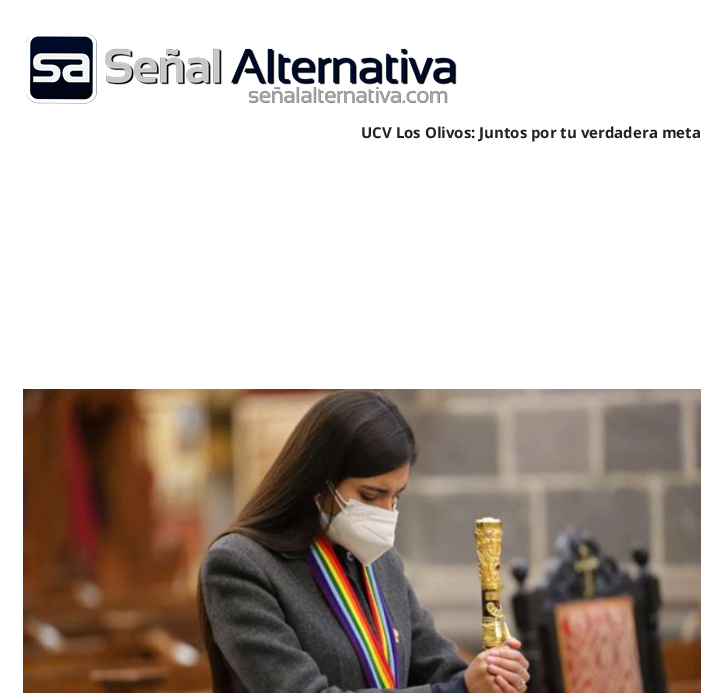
%!PS
<< /PageSize [723 693] >> setpagedevice
/C { dup -16 bitshift 255 div exch dup -8 bitshift 255 and 255 div exch 255 and 255 div setrgbcolor } def
/F { [ exch dup neg 0 0 3 -1 roll 0 0 ] selectfont } def
/T { moveto show } def
/R { rectfill } def
/I { 5 dict begin { /h /w /y /x /name } { exch def } forall
  gsave x y translate w h scale
  w h 8 [w 0 0 h 0 0] name (r) file false 3 colorimage grestore end } def
0 693 translate 1 -1 scale
4 setmiterlimit
16#FFFFFF C
0 0 723 693 R
(1.rgb) 26 33 431 71 I
/OpenSans-Bold 15 F
16#222222 C
(UCV Los Olivos: Juntos por tu verdadera meta) 361 138 T
(2.rgb) 23 389 678 304 I
showpage
